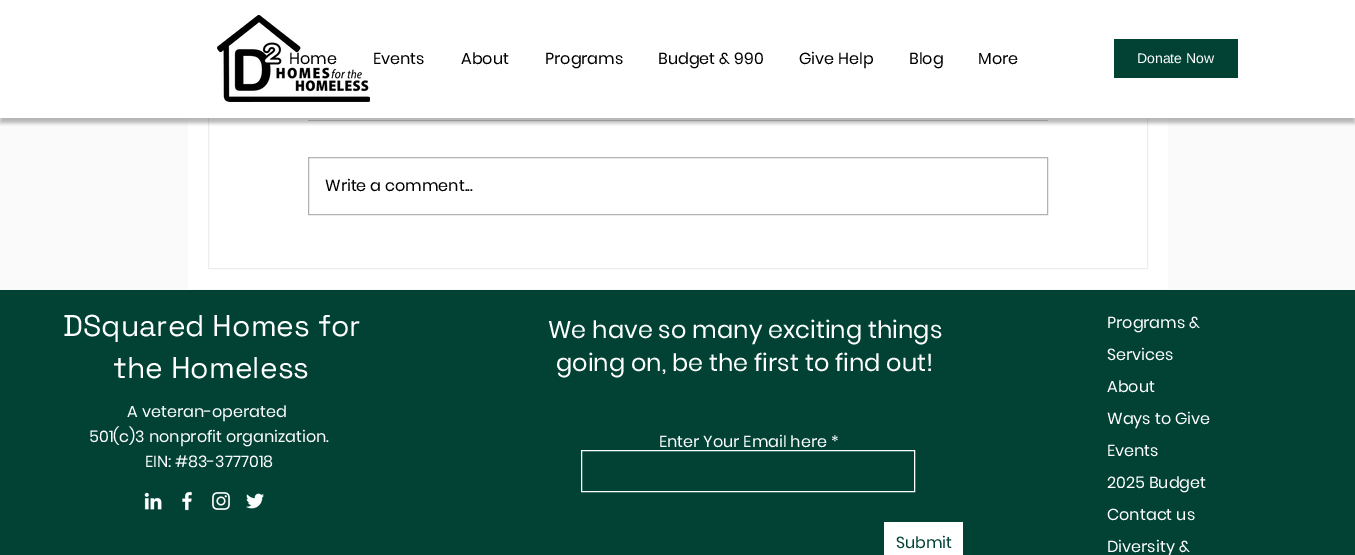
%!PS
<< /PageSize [1355 555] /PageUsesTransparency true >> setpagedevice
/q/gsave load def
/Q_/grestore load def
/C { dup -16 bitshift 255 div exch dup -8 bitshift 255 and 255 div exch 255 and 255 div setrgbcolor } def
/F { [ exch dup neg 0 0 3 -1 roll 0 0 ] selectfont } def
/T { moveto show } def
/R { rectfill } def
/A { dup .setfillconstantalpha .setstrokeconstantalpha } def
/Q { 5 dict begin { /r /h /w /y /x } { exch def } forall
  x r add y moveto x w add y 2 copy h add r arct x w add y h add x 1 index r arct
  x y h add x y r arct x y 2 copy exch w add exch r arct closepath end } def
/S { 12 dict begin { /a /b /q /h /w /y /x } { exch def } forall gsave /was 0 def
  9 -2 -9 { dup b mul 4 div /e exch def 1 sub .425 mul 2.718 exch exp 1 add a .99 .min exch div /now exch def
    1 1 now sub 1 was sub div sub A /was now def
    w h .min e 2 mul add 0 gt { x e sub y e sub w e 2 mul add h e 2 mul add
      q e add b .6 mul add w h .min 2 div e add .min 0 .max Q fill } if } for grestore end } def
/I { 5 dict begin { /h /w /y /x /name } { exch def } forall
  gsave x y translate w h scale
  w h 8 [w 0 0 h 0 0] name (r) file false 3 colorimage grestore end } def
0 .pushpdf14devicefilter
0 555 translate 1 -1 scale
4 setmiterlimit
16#FAFAFA C
0 0 1355 555 R
16#FFFFFF C
188 118 980 171 R
16#EEECEC C
208.5 35.5 939 233 rectstroke
16#FFFFFF C
0 0 1355 118 R
16#CCCCCC C
308 120 740 1 R
q
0 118 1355 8 rectclip
16#000000 C
0 5 1355 118 0 2 .28 S
Q_
(1.rgb) 217 15 153 87 I
/Poppins-Regular 16 F
16#000000 C
(Home) 289 64 T
(Events) 373 64 T
(About) 461 64 T
(Programs) 545 64 T
(Budget & 990) 658 64 T
(Give Help) 799 64 T
(Blog) 909 64 T
(More) 978 64 T
16#014235 C
1114 39 124 39 R
/LiberationSans-Regular 14 F
16#FFFFFF C
(Donate Now) 1137 63 T
16#B3B3B3 C
308.5 157.5 739 57 rectstroke
/Poppins-Regular 16 F
16#000000 C
(Write a comment...) 325 191 T
16#014235 C
0 290 1355 265 R
/SpaceGrotesk-Regular 30 F
16#FFFFFF C
(DSquared Homes for) 63 336 T
(the Homeless) 113 378 T
/Poppins-Regular 16 F
(A veteran-operated) 127 417 T
(501\(c\)3 nonprofit organization.) 89 442 T
(EIN: #83-3777018) 145 467 T
(2.rgb) 144 492 18 18 I
(3.rgb) 182 491 10 20 I
(4.rgb) 212 492 18 18 I
(5.rgb) 246 493 18 16 I
/Poppins-Regular 24 F
(We have so many exciting things) 548 338 T
(going on, be the first to find out!) 556 371 T
/Poppins-Regular 16 F
(Enter Your Email here *) 659 447 T
581.5 450.5 333 41 rectstroke
884 522 79 33 R
16#014235 C
(Submit) 896 548 T
16#FFFFFF C
(Programs &) 1107 328 T
(Services) 1107 360 T
(About) 1107 392 T
(Ways to Give) 1107 424 T
(Events) 1107 456 T
(2025 Budget) 1107 488 T
(Contact us) 1107 520 T
(Diversity &) 1107 552 T
.poppdf14devicefilter showpage
